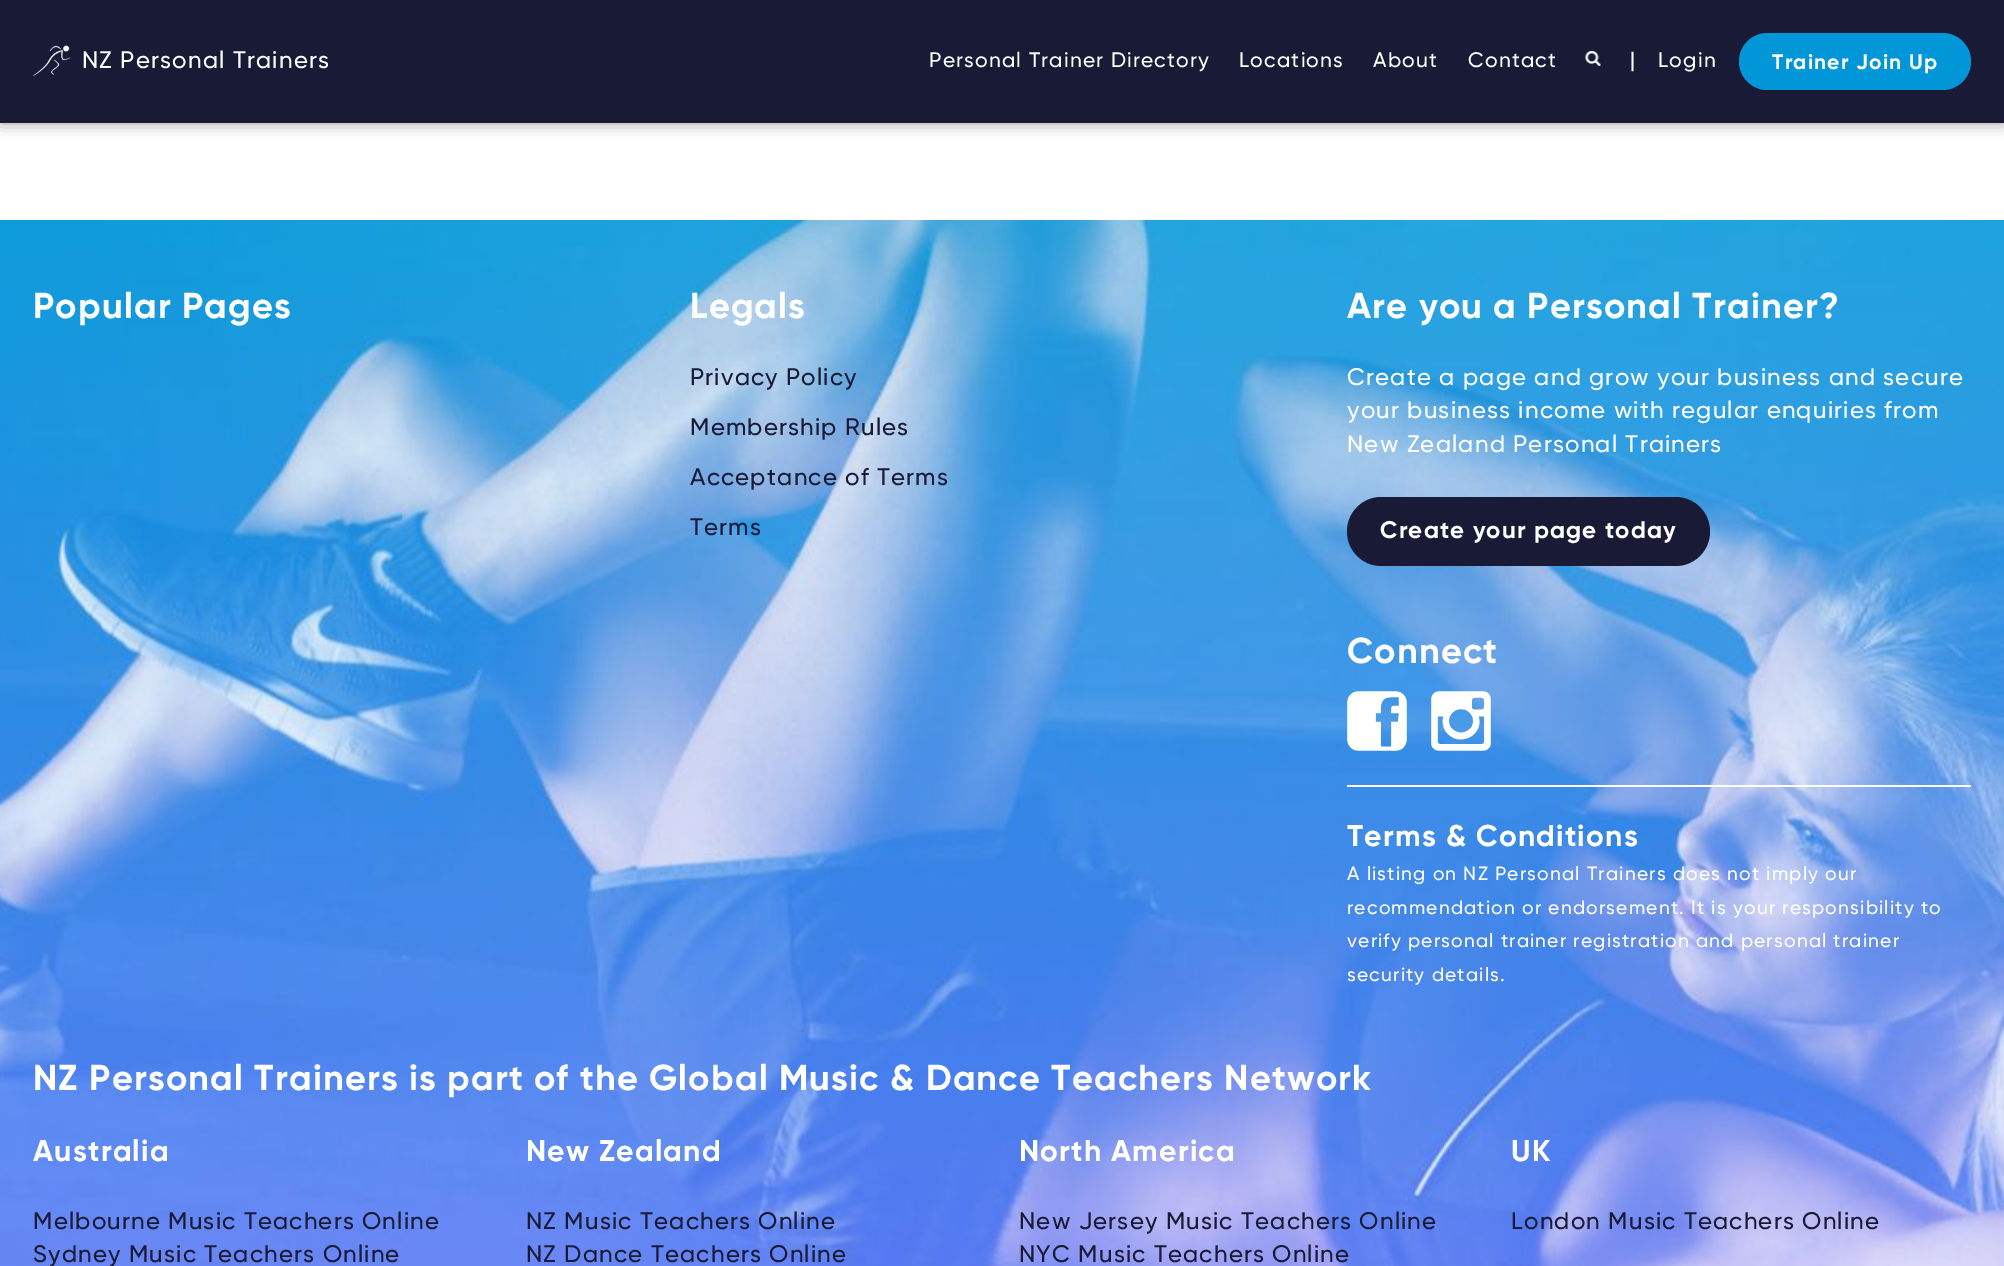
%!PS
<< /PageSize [2004 1266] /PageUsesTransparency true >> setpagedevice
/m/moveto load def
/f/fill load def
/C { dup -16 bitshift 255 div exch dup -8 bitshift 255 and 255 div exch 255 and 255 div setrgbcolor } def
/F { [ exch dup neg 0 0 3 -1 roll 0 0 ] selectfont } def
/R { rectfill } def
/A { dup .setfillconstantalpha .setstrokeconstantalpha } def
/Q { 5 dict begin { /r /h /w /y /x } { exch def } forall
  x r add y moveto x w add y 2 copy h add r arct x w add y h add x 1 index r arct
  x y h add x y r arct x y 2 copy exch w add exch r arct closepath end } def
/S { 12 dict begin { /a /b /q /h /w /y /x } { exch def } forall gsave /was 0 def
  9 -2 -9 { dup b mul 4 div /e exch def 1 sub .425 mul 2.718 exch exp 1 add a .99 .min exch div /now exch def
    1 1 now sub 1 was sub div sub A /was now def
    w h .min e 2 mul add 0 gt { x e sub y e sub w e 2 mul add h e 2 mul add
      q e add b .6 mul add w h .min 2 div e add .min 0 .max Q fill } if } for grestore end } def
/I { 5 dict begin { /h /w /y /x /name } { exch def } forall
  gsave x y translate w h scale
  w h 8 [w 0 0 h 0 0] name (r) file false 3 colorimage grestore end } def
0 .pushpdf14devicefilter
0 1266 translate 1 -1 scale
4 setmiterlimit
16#FFFFFF C
0 0 2004 1266 R
16#000000 C
0 0 2004 123 0 7.5 .4 S
16#181A36 C
0 0 2004 123 R
(1.rgb) 33 45 38 31 I
/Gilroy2-Regular 24 F
16#FFFFFF C
82 68 m 1.2 0 (NZ Personal Trainers) ashow
/Gilroy2-Regular 21 F
929 67 m 1.2 0 (Personal Trainer Directory) ashow
1239 67 m 1.2 0 (Locations) ashow
1373 67 m 1.2 0 (About) ashow
1468 67 m 1.2 0 (Contact) ashow
(2.rgb) 1585 51 16 15 I
1630 67 m 1.2 0 (|) ashow
1658 67 m 1.2 0 (Login) ashow
16#0096D8 C
1739 33 232 57 28.5 Q f
/Gilroy-Regular 21 F
16#FFFFFF C
1772 69 m 1.2 0 (Trainer Join Up) ashow
(3.rgb) 0 220 2004 1046 I
/Gilroy-Regular 36 F
33 318 m 1.2 0 (Popular Pages) ashow
690 318 m 1.2 0 (Legals) ashow
/Gilroy2-Regular 24 F
16#181A36 C
690 385 m 1.2 0 (Privacy Policy) ashow
690 435 m 1.2 0 (Membership Rules) ashow
690 485 m 1.2 0 (Acceptance of Terms) ashow
690 535 m 1.2 0 (Terms) ashow
/Gilroy-Regular 36 F
16#FFFFFF C
1347 318 m 1.2 0 (Are you a Personal Trainer?) ashow
/Gilroy2-Regular 24 F
1347 385 m 1.2 0 (Create a page and grow your business and secure) ashow
1347 418 m 1.2 0 (your business income with regular enquiries from) ashow
1347 452 m 1.2 0 (New Zealand Personal Trainers) ashow
16#181A36 C
1347 497 363 69 34.5 Q f
/Gilroy-Regular 24 F
16#FFFFFF C
1380 538 m 1.2 0 (Create your page today) ashow
/Gilroy-Regular 36 F
1347 663 m 1.2 0 (Connect) ashow
(4.rgb) 1347 691 60 60 I
(5.rgb) 1431 691 60 60 I
1347 785 624 2 R
/Gilroy-Regular 30 F
1347 846 m 1.2 0 (Terms & Conditions) ashow
/Gilroy2-Regular 19.2 F
1347 880 m 1.2 0 (A listing on NZ Personal Trainers does not imply our) ashow
1347 914 m 1.2 0 (recommendation or endorsement. It is your responsibility to) ashow
1347 947 m 1.2 0 (verify personal trainer registration and personal trainer) ashow
1347 981 m 1.2 0 (security details.) ashow
/Gilroy-Regular 36 F
33 1090 m 1.2 0 (NZ Personal Trainers is part of the Global Music & Dance Teachers Network) ashow
/Gilroy-Regular 30 F
33 1161 m 1.2 0 (Australia) ashow
/Gilroy2-Regular 24 F
16#181A36 C
33 1229 m 1.2 0 (Melbourne Music Teachers Online) ashow
33 1262 m 1.2 0 (Sydney Music Teachers Online) ashow
/Gilroy-Regular 30 F
16#FFFFFF C
526 1161 m 1.2 0 (New Zealand) ashow
/Gilroy2-Regular 24 F
16#181A36 C
526 1229 m 1.2 0 (NZ Music Teachers Online) ashow
526 1262 m 1.2 0 (NZ Dance Teachers Online) ashow
/Gilroy-Regular 30 F
16#FFFFFF C
1019 1161 m 1.2 0 (North America) ashow
/Gilroy2-Regular 24 F
16#181A36 C
1019 1229 m 1.2 0 (New Jersey Music Teachers Online) ashow
1019 1262 m 1.2 0 (NYC Music Teachers Online) ashow
/Gilroy-Regular 30 F
16#FFFFFF C
1511 1161 m 1.2 0 (UK) ashow
/Gilroy2-Regular 24 F
16#181A36 C
1511 1229 m 1.2 0 (London Music Teachers Online) ashow
.poppdf14devicefilter showpage
